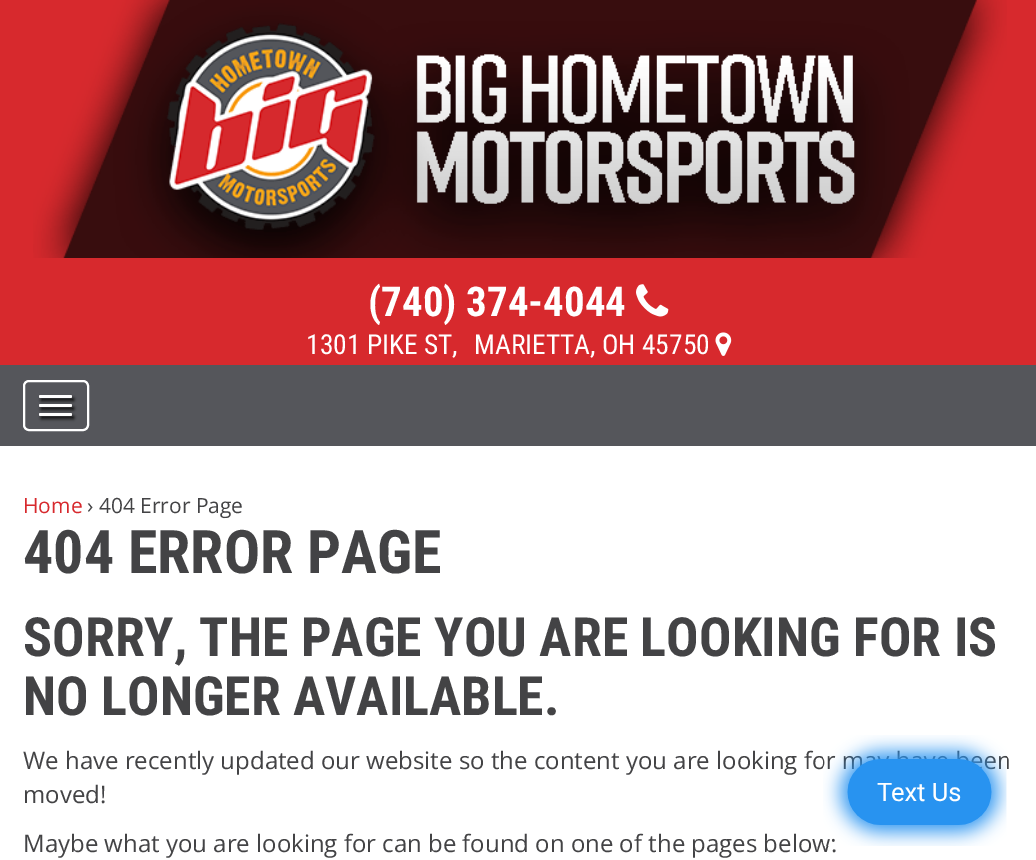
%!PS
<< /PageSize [1036 860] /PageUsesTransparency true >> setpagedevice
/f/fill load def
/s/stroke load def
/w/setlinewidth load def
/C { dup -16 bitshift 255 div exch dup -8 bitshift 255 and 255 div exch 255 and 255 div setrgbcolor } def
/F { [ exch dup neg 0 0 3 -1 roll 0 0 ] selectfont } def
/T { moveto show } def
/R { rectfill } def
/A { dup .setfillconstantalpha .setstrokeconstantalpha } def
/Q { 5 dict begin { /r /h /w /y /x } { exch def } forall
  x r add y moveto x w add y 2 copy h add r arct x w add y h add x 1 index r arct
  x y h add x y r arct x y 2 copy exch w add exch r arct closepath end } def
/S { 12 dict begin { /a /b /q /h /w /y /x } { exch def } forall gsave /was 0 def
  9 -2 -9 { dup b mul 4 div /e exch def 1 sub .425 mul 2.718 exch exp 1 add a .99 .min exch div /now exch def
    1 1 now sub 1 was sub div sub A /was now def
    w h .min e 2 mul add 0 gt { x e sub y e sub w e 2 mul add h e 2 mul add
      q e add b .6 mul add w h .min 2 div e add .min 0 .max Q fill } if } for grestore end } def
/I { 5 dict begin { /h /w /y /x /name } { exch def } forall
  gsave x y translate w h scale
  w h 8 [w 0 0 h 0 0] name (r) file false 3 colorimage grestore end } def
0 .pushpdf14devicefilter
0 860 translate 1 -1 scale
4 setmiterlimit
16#FFFFFF C
0 0 1036 860 R
16#D7292D C
0 0 1036 365 R
(1.rgb) 33 0 974 258 I
/RobotoCondensed-Bold 41 F
16#FFFFFF C
(\(740\) 374-4044) 368 316 T
(2.rgb) 636 284 33 33 I
/RobotoCondensed-Regular 27.5 F
(1301 PIKE ST,) 306 354 T
(MARIETTA, OH 45750) 474 354 T
(3.rgb) 715 332 17 24 I
16#55565B C
0 365 1036 81 R
16#FFFFFF C
2 w
24 381 64 49 5 Q s
16#000000 C
41 398 33 3 1.5 1.5 .75 S
16#FFFFFF C
39 395 33 3 1.5 Q f
16#000000 C
41 407 33 3 1.5 1.5 .75 S
16#FFFFFF C
39 404 33 3 1.5 Q f
16#000000 C
41 416 33 3 1.5 1.5 .75 S
16#FFFFFF C
39 413 33 3 1.5 Q f
/OpenSans-Regular 21 F
16#D7292D C
(Home) 23 513 T
16#434345 C
(› 404 Error Page) 87 513 T
/RobotoCondensed-Bold 60 F
(404 ERROR PAGE) 23 573 T
/RobotoCondensed-Bold 54 F
(SORRY, THE PAGE YOU ARE LOOKING FOR IS) 23 656 T
(NO LONGER AVAILABLE.) 23 715 T
/OpenSans-Regular 24 F
(We have recently updated our website so the content you are looking for) 23 769 T
(en) 983 769 T
(moved!) 23 803 T
(Maybe what you are looking for can be found on one of the pages below:) 23 852 T
(4.rgb) 823 735 184 111 I
.poppdf14devicefilter showpage
